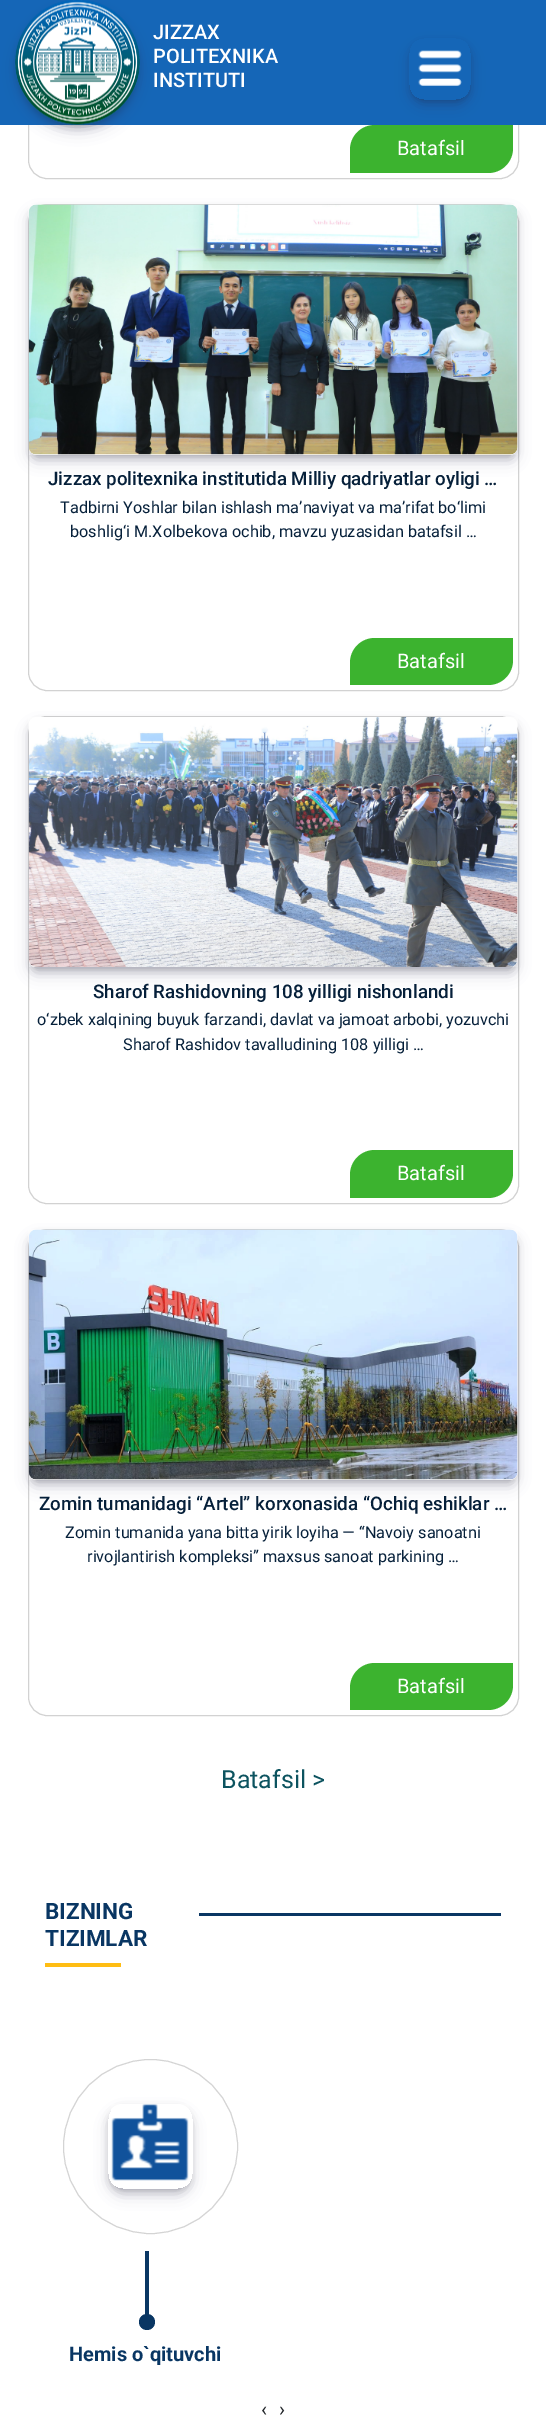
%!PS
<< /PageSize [546 2419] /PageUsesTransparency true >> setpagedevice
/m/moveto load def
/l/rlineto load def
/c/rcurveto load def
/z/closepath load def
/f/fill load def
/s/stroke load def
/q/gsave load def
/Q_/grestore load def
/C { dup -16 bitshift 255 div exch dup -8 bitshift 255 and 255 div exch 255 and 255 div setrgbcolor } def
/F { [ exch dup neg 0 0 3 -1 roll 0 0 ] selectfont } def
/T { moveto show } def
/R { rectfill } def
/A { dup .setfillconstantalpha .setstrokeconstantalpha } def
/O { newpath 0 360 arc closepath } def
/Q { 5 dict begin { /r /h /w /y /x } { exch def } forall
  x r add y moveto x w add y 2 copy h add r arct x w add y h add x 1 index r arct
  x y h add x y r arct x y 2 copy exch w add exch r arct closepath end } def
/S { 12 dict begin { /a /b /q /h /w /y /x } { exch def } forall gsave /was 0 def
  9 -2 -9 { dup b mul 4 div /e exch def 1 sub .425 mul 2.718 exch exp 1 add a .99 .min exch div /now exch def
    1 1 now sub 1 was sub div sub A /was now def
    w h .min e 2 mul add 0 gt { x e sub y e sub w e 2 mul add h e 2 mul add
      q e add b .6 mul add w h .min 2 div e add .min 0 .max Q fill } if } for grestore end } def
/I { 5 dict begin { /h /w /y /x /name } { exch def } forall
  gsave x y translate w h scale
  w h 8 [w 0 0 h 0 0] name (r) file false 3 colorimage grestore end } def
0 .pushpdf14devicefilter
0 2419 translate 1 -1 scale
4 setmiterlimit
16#FFFFFF C
0 0 546 2419 R
16#D2D2D2 C
28.5 -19.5 490 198 18.5 Q s
16#1566B7 C
0 0 546 125 R
16#32325D C
18 10 120 120 60 7.5 .25 S
16#000000 C
19 8 117 117 58.5 4.5 .3 S
(1.rgb) 15 0 125 125 I
/Roboto-Medium 20 F
16#FFFFFF C
(JIZZAX) 153 39 T
(POLITEXNIKA) 153 63 T
(INSTITUTI) 153 87 T
q
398 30 m 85 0 l 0 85 l -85 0 l z 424 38 m 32 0 l 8.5 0 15 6.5 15 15 c 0 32 l 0 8.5 -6.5 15 -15 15 c -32 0 l -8.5 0 -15 -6.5 -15 -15 c 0 -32 l 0 -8.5 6.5 -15 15 -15 c z eoclip newpath
16#000000 C
413 45 55 55 11 4.5 .3 S
Q_
16#3CB32F C
375 125 m 138 0 l 0 23 l 0 14 -11 25 -25 25 c -138 0 l 0 -23 l 0 -14 11 -25 25 -25 c z f
q
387 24 m 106 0 l 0 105 l -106 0 l z 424 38 m 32 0 l 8.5 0 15 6.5 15 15 c 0 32 l 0 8.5 -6.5 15 -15 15 c -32 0 l -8.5 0 -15 -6.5 -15 -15 c 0 -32 l 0 -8.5 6.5 -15 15 -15 c z eoclip newpath
16#32325D C
411 48 58 57 13 7.5 .25 S
Q_
(2.rgb) 418 50 44 36 I
/Roboto-Regular 20 F
16#FFFFFF C
(Batafsil) 397 155 T
16#D2D2D2 C
28.5 204.5 490 486 18.5 Q s
16#000000 C
33 213 481 242 4 4.5 .3 S
16#32325D C
31 215 484 245 5 7.5 .25 S
(3.rgb) 28 204 490 251 I
/Roboto-Medium 18.75 F
16#06203A C
(Jizzax politexnika institutida Milliy qadriyatlar oyligi …) 48 485 T
/Roboto-Regular 16.25 F
(Tadbirni Yoshlar bilan ishlash ma’naviyat va ma’rifat bo‘limi) 60 513 T
(boshlig‘i M.Xolbekova ochib, mavzu yuzasidan batafsil …) 70 537 T
16#3CB32F C
375 638 m 138 0 l 0 22 l 0 14 -11 25 -25 25 c -138 0 l 0 -22 l 0 -14 11 -25 25 -25 c z f
/Roboto-Regular 20 F
16#FFFFFF C
(Batafsil) 397 668 T
16#D2D2D2 C
28.5 716.5 490 487 18.5 Q s
16#000000 C
33 725 481 243 4 4.5 .3 S
16#32325D C
31 728 484 245 5 7.5 .25 S
(4.rgb) 28 717 490 250 I
/Roboto-Medium 18.75 F
16#06203A C
(Sharof Rashidovning 108 yilligi nishonlandi) 93 998 T
/Roboto-Regular 16.25 F
(o‘zbek xalqining buyuk farzandi, davlat va jamoat arbobi, yozuvchi) 37 1025 T
(Sharof Rashidov tavalludining 108 yilligi …) 123 1050 T
16#3CB32F C
375 1150 m 138 0 l 0 23 l 0 14 -11 25 -25 25 c -138 0 l 0 -23 l 0 -14 11 -25 25 -25 c z f
/Roboto-Regular 20 F
16#FFFFFF C
(Batafsil) 397 1180 T
16#D2D2D2 C
28.5 1229.5 490 486 18.5 Q s
16#000000 C
33 1238 481 242 4 4.5 .3 S
16#32325D C
31 1240 484 245 5 7.5 .25 S
(5.rgb) 28 1229 490 251 I
/Roboto-Medium 18.75 F
16#06203A C
(Zomin tumanidagi “Artel” korxonasida “Ochiq eshiklar …) 39 1510 T
/Roboto-Regular 16.25 F
(Zomin tumanida yana bitta yirik loyiha — “Navoiy sanoatni) 65 1538 T
(rivojlantirish kompleksi” maxsus sanoat parkining …) 87 1562 T
16#3CB32F C
375 1663 m 138 0 l 0 22 l 0 14 -11 25 -25 25 c -138 0 l 0 -22 l 0 -14 11 -25 25 -25 c z f
/Roboto-Regular 20 F
16#FFFFFF C
(Batafsil) 397 1693 T
/Roboto-Regular 25 F
16#0C535F C
(Batafsil >) 221 1788 T
/Roboto-Bold 22.5 F
16#093663 C
(BIZNING) 45 1919 T
(TIZIMLAR) 45 1946 T
16#FFBD13 C
45 1963 76 4 R
16#093663 C
199 1913 302 3 R
16#D4D4D4 C
150.5 2146.5 87 O s
q
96 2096 m 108 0 l 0 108 l -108 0 l z 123 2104 m 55 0 l 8.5 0 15 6.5 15 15 c 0 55 l 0 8.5 -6.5 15 -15 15 c -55 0 l -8.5 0 -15 -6.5 -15 -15 c 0 -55 l 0 -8.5 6.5 -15 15 -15 c z eoclip newpath
16#000000 C
111 2111 78 78 11 4.5 .3 S
Q_
q
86 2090 m 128 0 l 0 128 l -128 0 l z 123 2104 m 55 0 l 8.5 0 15 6.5 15 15 c 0 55 l 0 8.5 -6.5 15 -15 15 c -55 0 l -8.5 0 -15 -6.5 -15 -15 c 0 -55 l 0 -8.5 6.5 -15 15 -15 c z eoclip newpath
16#32325D C
110 2114 80 80 13 7.5 .25 S
Q_
(6.rgb) 111 2104 78 77 I
16#093663 C
145 2251 4 63 R
147 2322 8 O f
/Roboto-Bold 20 F
(Hemis o`qituvchi) 69 2361 T
/Roboto-Regular 20 F
16#212529 C
(‹) 261 2416 T
(›) 279 2416 T
.poppdf14devicefilter showpage
